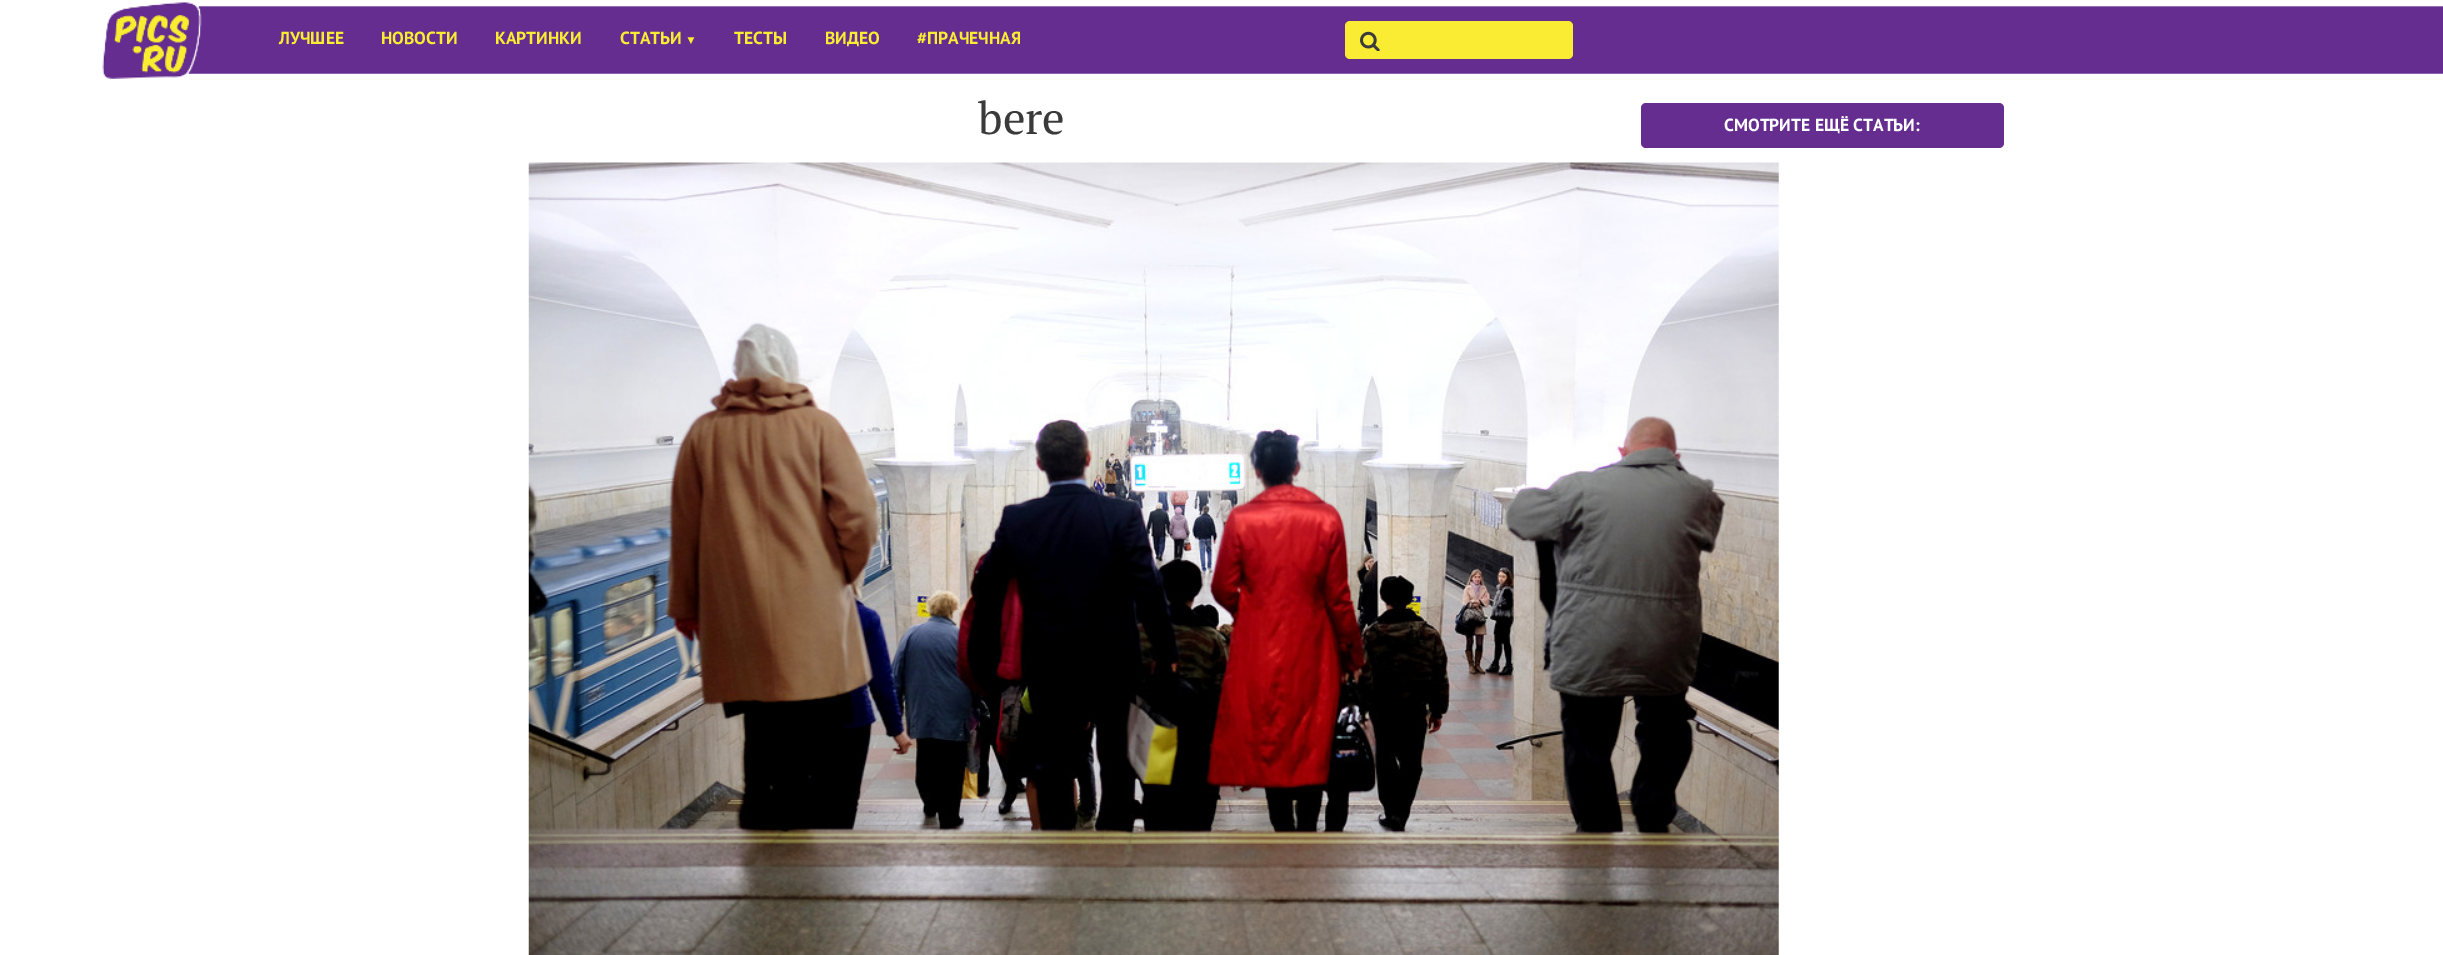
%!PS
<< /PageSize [2443 955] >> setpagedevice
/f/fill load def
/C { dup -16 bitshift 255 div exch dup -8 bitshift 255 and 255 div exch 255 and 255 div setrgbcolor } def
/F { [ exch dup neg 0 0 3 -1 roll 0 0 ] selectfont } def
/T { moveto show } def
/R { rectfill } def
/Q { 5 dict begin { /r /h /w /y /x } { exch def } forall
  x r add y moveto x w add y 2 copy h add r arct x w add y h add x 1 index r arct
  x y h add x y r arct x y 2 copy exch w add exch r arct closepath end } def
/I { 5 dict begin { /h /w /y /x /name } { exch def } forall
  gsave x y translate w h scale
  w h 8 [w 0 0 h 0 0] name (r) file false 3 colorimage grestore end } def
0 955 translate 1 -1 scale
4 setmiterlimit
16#FFFFFF C
0 0 2443 955 R
(1.rgb) 102 2 2341 77 I
/PTSans-Bold 17.5 F
16#F9EC32 C
(ЛУЧШЕЕ) 279 44 T
(НОВОСТИ) 381 44 T
(КАРТИНКИ) 495 44 T
(СТАТЬИ) 620 44 T
/LiberationSans-Bold 12 F
(▼) 685 44 T
/PTSans-Bold 17.5 F
(ТЕСТЫ) 734 44 T
(ВИДЕО) 825 44 T
(#ПРАЧЕЧНАЯ) 917 44 T
1345 21 228 38 5 Q f
(2.rgb) 1360 31 20 20 I
/PTSerif-Regular 45 F
16#3A3A3A C
(bere) 978 134 T
(3.rgb) 528 162 1251 793 I
16#652D90 C
1641 103 363 45 5 Q f
/PTSans-Bold 17.5 F
16#FFFFFF C
(СМОТРИТЕ ЕЩЁ СТАТЬИ:) 1724 131 T
showpage
